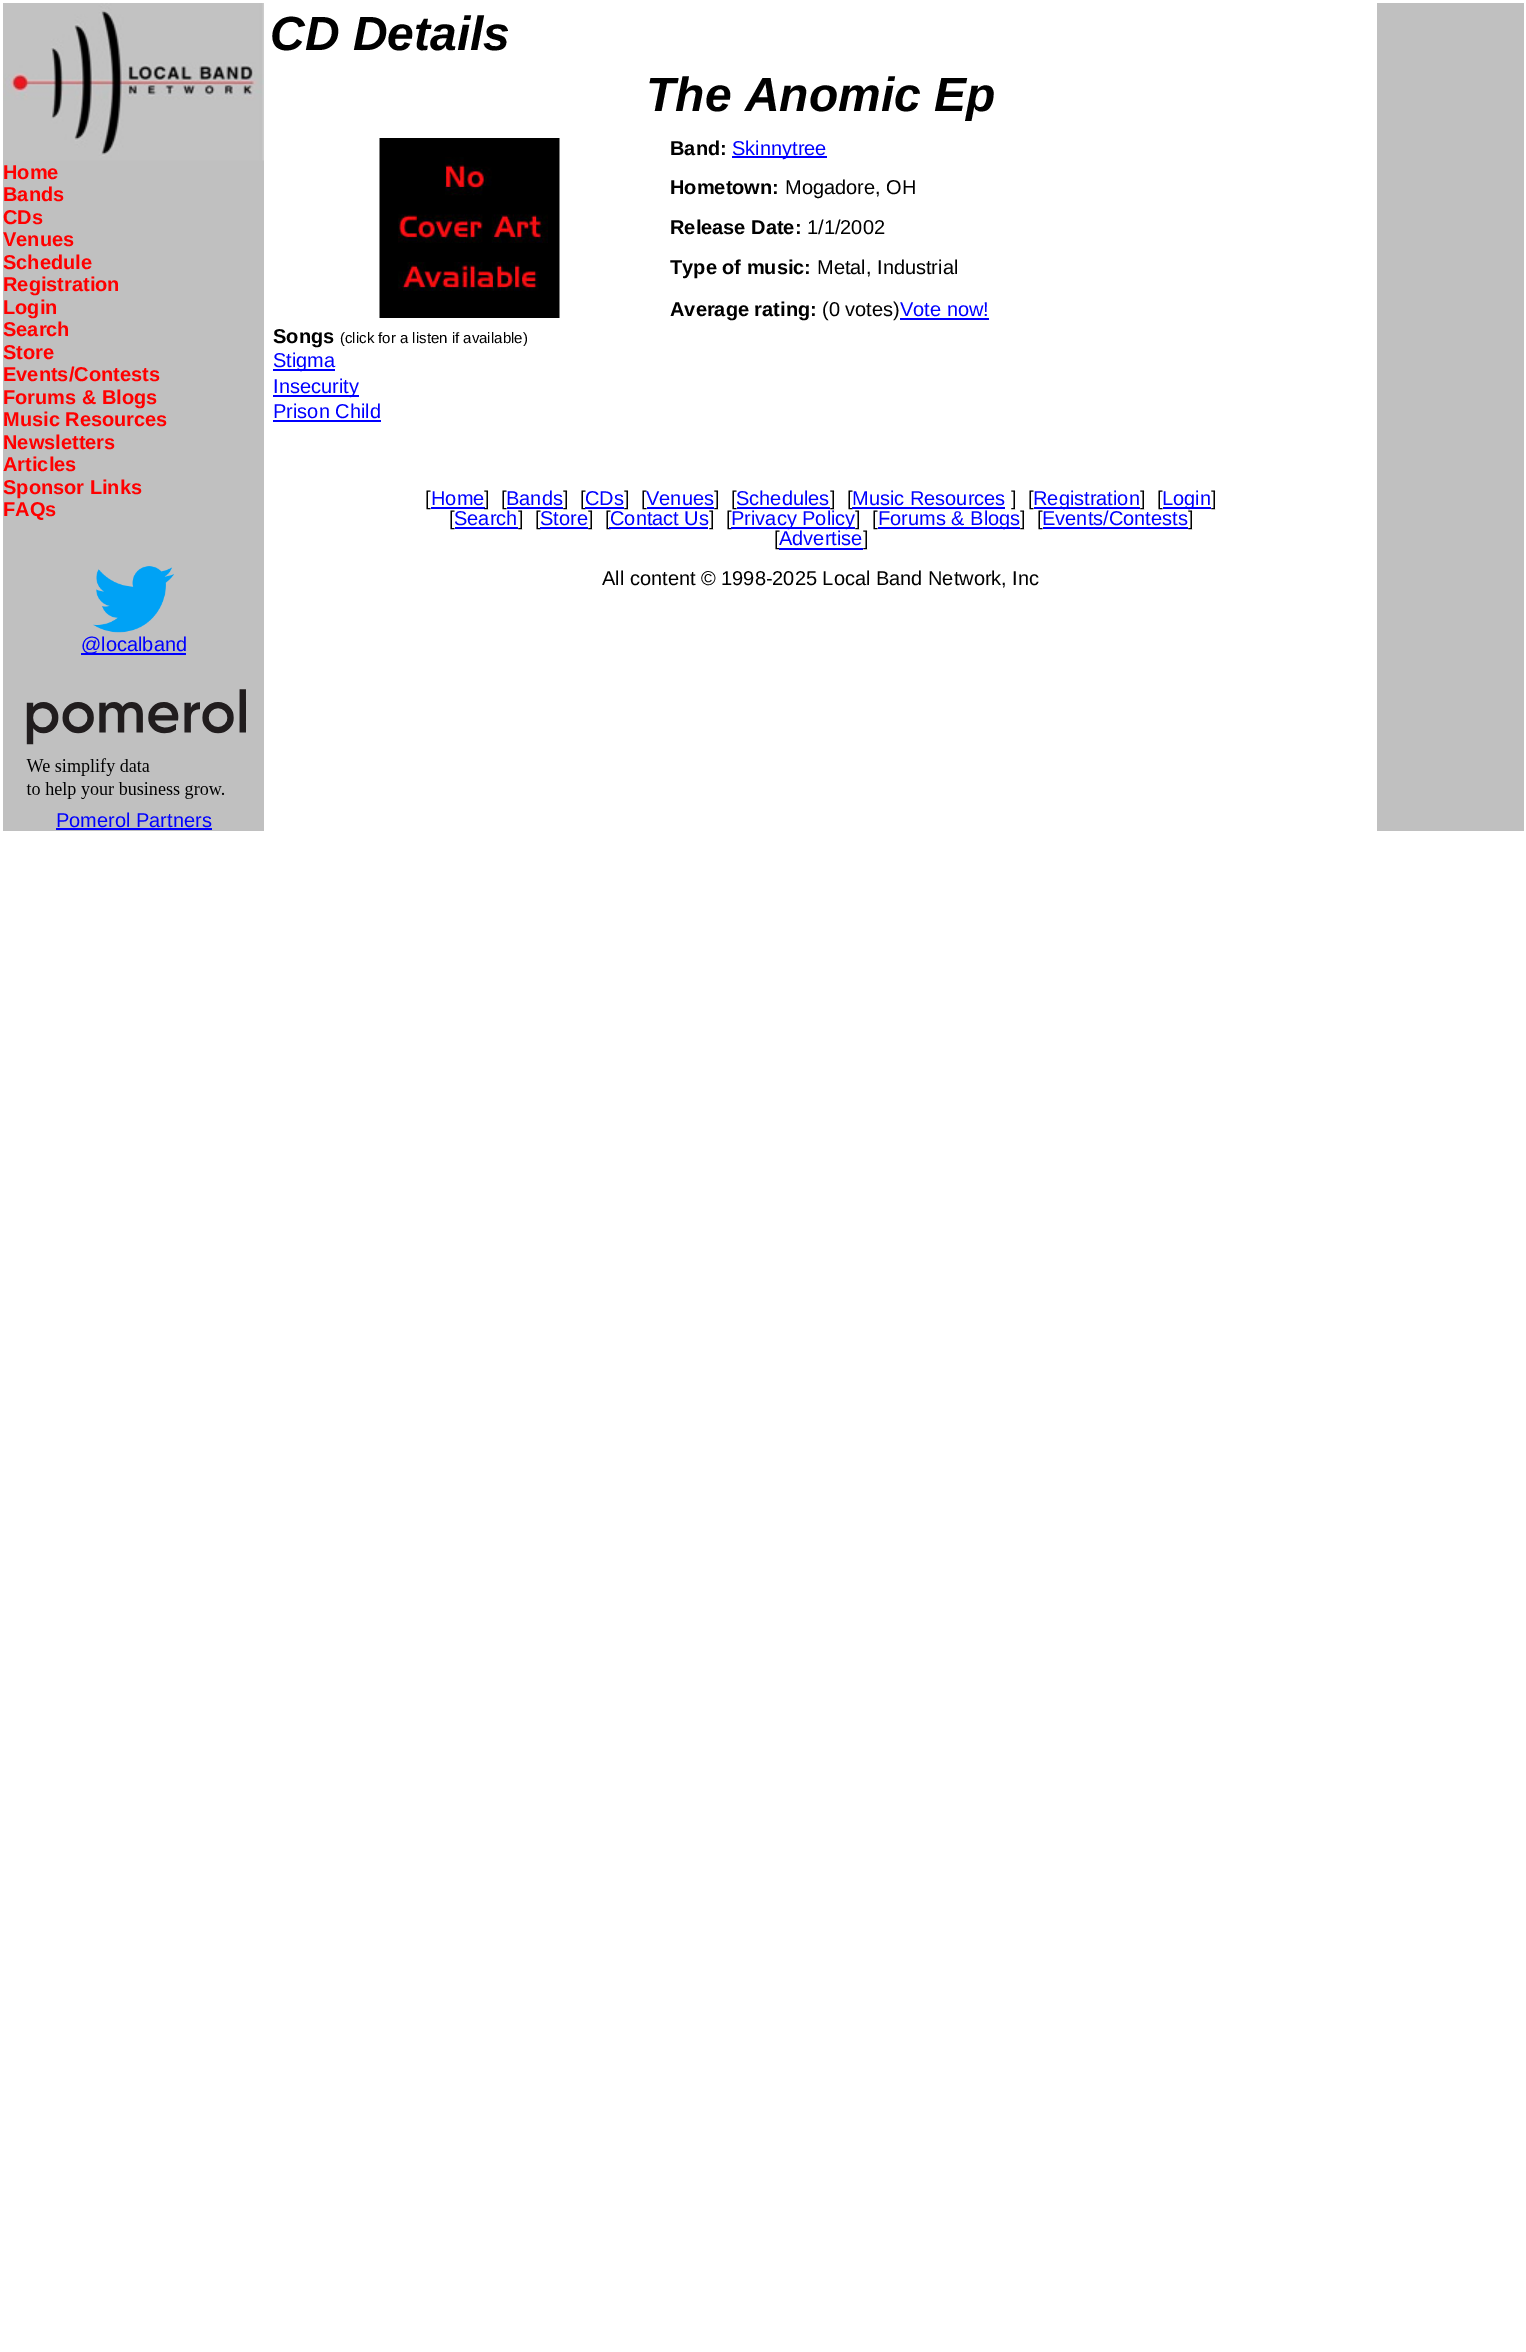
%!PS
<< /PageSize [1526 2352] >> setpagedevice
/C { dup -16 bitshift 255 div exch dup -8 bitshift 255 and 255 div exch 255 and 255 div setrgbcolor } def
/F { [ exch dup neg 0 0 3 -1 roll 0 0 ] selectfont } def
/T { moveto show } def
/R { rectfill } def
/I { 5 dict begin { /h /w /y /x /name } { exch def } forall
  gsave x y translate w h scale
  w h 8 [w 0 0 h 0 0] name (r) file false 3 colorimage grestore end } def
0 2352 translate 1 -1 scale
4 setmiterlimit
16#FFFFFF C
0 0 1526 2352 R
16#C0C0C0 C
3 160 261 671 R
(1.rgb) 3 3 261 158 I
/LiberationSans-Bold 20 F
16#FF0000 C
(Home) 3 179 T
(Bands) 3 201 T
(CDs) 3 224 T
(Venues) 3 246 T
(Schedule) 3 269 T
(Registration) 3 291 T
(Login) 3 314 T
(Search) 3 336 T
(Store) 3 359 T
(Events/Contests) 3 381 T
(Forums & Blogs) 3 404 T
(Music Resources) 3 426 T
(Newsletters) 3 449 T
(Articles) 3 471 T
(Sponsor Links) 3 494 T
(FAQs) 3 516 T
(2.rgb) 93 566 81 67 I
16#0000FF C
81 653 105 2 R
/LiberationSans-Regular 20 F
(@localband) 81 651 T
(3.rgb) 26 689 220 110 I
(Pomerol Partners) 56 827 T
56 828 156 2 R
/LiberationSans-BoldItalic 48 F
16#000000 C
(CD Details) 270 50 T
(The Anomic Ep) 646 111 T
(4.rgb) 379 138 181 180 I
/LiberationSans-Bold 20 F
(Band:) 670 155 T
16#0000FF C
732 156 95 2 R
/LiberationSans-Regular 20 F
(Skinnytree) 732 155 T
/LiberationSans-Bold 20 F
16#000000 C
(Hometown:) 670 194 T
/LiberationSans-Regular 20 F
(Mogadore, OH) 785 194 T
/LiberationSans-Bold 20 F
(Release Date:) 670 234 T
/LiberationSans-Regular 20 F
(1/1/2002) 807 234 T
/LiberationSans-Bold 20 F
(Type of music:) 670 274 T
/LiberationSans-Regular 20 F
(Metal, Industrial) 817 274 T
/LiberationSans-Bold 20 F
(Average rating:) 670 316 T
/LiberationSans-Regular 20 F
(\(0 votes\)) 822 316 T
16#0000FF C
(Vote now!) 900 316 T
900 318 89 2 R
/LiberationSans-Bold 20 F
16#000000 C
(Songs) 273 343 T
/LiberationSans-Regular 15 F
(\(click for a listen if available\)) 340 343 T
16#0000FF C
273 369 62 2 R
/LiberationSans-Regular 20 F
(Stigma) 273 367 T
273 395 86 2 R
(Insecurity) 273 393 T
(Prison Child) 273 418 T
273 420 108 2 R
16#000000 C
([) 425 505 T
16#0000FF C
(Home) 431 505 T
431 507 54 2 R
16#000000 C
(]  [) 484 505 T
16#0000FF C
(Bands) 506 505 T
507 507 56 2 R
16#000000 C
(]  [) 563 505 T
16#0000FF C
(CDs) 585 505 T
585 507 39 2 R
16#000000 C
(]  [) 624 505 T
16#0000FF C
(Venues) 646 505 T
647 507 67 2 R
16#000000 C
(]  [) 714 505 T
16#0000FF C
(Schedules) 736 505 T
737 507 93 2 R
16#000000 C
(]  [) 830 505 T
16#0000FF C
(Music Resources) 852 505 T
852 507 153 2 R
16#000000 C
(]  [) 1011 505 T
16#0000FF C
1034 507 106 2 R
(Registration) 1033 505 T
16#000000 C
(]  [) 1140 505 T
16#0000FF C
1163 507 48 2 R
(Login) 1162 505 T
16#000000 C
(]) 1211 505 T
([) 449 525 T
16#0000FF C
(Search) 454 525 T
455 527 63 2 R
16#000000 C
(]  [) 518 525 T
16#0000FF C
(Store) 540 525 T
540 527 48 2 R
16#000000 C
(]  [) 588 525 T
16#0000FF C
(Contact Us) 610 525 T
609 527 99 2 R
16#000000 C
(]  [) 709 525 T
16#0000FF C
731 527 124 2 R
(Privacy Policy) 731 525 T
16#000000 C
(]  [) 855 525 T
16#0000FF C
878 527 142 2 R
(Forums & Blogs) 878 525 T
16#000000 C
(]  [) 1020 525 T
16#0000FF C
(Events/Contests) 1042 525 T
1043 527 145 2 R
16#000000 C
(]) 1188 525 T
([) 774 545 T
16#0000FF C
(Advertise) 779 545 T
779 548 84 2 R
16#000000 C
(]) 863 545 T
(All content © 1998-2025 Local Band Network, Inc) 602 585 T
16#C0C0C0 C
1377 3 147 828 R
showpage
